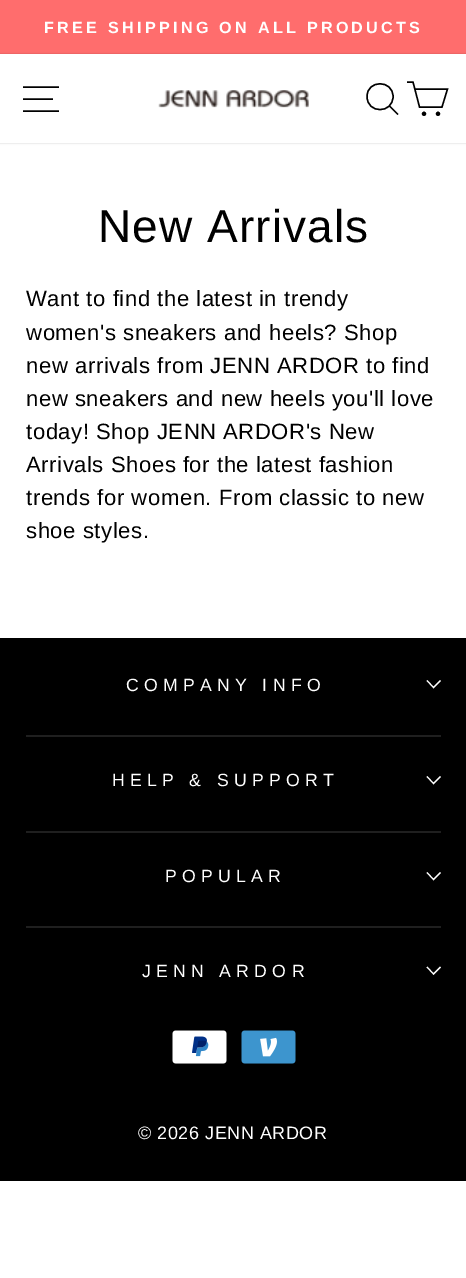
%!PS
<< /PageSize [466 1278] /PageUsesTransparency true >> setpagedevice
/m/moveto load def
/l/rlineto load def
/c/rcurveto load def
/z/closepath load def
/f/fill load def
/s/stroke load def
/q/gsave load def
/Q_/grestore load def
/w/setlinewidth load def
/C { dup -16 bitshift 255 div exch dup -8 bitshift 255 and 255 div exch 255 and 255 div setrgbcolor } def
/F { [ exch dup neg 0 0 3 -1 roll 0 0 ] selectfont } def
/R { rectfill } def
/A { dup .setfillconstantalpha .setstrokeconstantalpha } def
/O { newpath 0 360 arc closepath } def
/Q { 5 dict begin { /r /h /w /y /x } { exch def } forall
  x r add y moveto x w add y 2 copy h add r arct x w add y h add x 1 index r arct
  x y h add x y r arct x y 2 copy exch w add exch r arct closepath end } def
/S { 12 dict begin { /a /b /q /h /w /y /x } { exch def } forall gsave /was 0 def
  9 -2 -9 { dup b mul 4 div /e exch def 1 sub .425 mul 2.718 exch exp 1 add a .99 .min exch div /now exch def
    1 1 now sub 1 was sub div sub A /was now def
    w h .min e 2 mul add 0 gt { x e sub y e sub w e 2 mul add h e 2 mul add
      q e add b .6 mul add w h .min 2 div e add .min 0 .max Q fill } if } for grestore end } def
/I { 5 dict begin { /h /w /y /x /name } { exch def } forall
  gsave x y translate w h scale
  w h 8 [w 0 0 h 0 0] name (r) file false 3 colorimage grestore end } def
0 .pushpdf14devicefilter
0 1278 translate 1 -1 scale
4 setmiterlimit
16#FFFFFF C
0 0 466 1278 R
16#FF6D6D C
0 0 466 54 R
/LiberationSans-Bold 16.2 F
16#FFFFFF C
44 33 m 3.25 0 (FREE SHIPPING ON ALL PRODUCTS) ashow
16#000000 C
0 54 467 89 0 1 .2 S
16#FFFFFF C
0 54 466 89 R
16#000000 C
1.4 w
23 87 m 36 0 l 23 99 m 30 0 l 23 111 m 36 0 l s
(1.rgb) 158 90 151 18 I
393 96.5 m 0 17.5 -26 17.5 -26 0 c 0 -17 26 -17 26 0 c z 398 114.5 m -8.5 -8.5 l s
415 89 m 32.5 0 l -5.5 18 l -22.5 0 l -6.5 -25 l -6 0 l s
424 113.8 1.4 O q f Q_
s
438 113.8 1.4 O q f Q_
s
/LiberationSans-Regular 46 F
98 242 m 1.1 0 (New Arrivals) ashow
/LiberationSans-Regular 22.1 F
26 306 m .55 0 (Want to find the latest in trendy) ashow
26 340 m .55 0 (women's sneakers and heels? Shop) ashow
26 373 m .55 0 (new arrivals from JENN ARDOR to find) ashow
26 406 m .55 0 (new sneakers and new heels you'll love) ashow
26 439 m .55 0 (today! Shop JENN ARDOR's New) ashow
26 472 m .55 0 (Arrivals Shoes for the latest fashion) ashow
26 505 m .55 0 (trends for women. From classic to new) ashow
26 538 m .55 0 (shoe styles.) ashow
0 638 466 543 R
/LiberationSans-Regular 17.7 F
16#FFFFFF C
126 691 m 5.25 0 (COMPANY INFO) ashow
1.1 w
427 680.5 m 6.5 7 l 7 -7 l s
16#1F1F1F C
26 735 415 2 R
16#FFFFFF C
112 786 m 5.25 0 (HELP & SUPPORT) ashow
427 776.5 m 6.5 7 l 7 -7 l s
16#1F1F1F C
26 831 415 2 R
16#FFFFFF C
165 882 m 5.25 0 (POPULAR) ashow
427 872.5 m 6.5 7 l 7 -7 l s
16#1F1F1F C
26 926 415 2 R
16#FFFFFF C
142 977 m 5.25 0 (JENN ARDOR) ashow
427 967 m 6.5 7 l 7 -7 l s
(2.rgb) 172 1030 55 34 I
(3.rgb) 241 1030 55 34 I
/LiberationSans-Regular 18 F
138 1139 m .55 0 (© 2026 JENN ARDOR) ashow
.poppdf14devicefilter showpage
